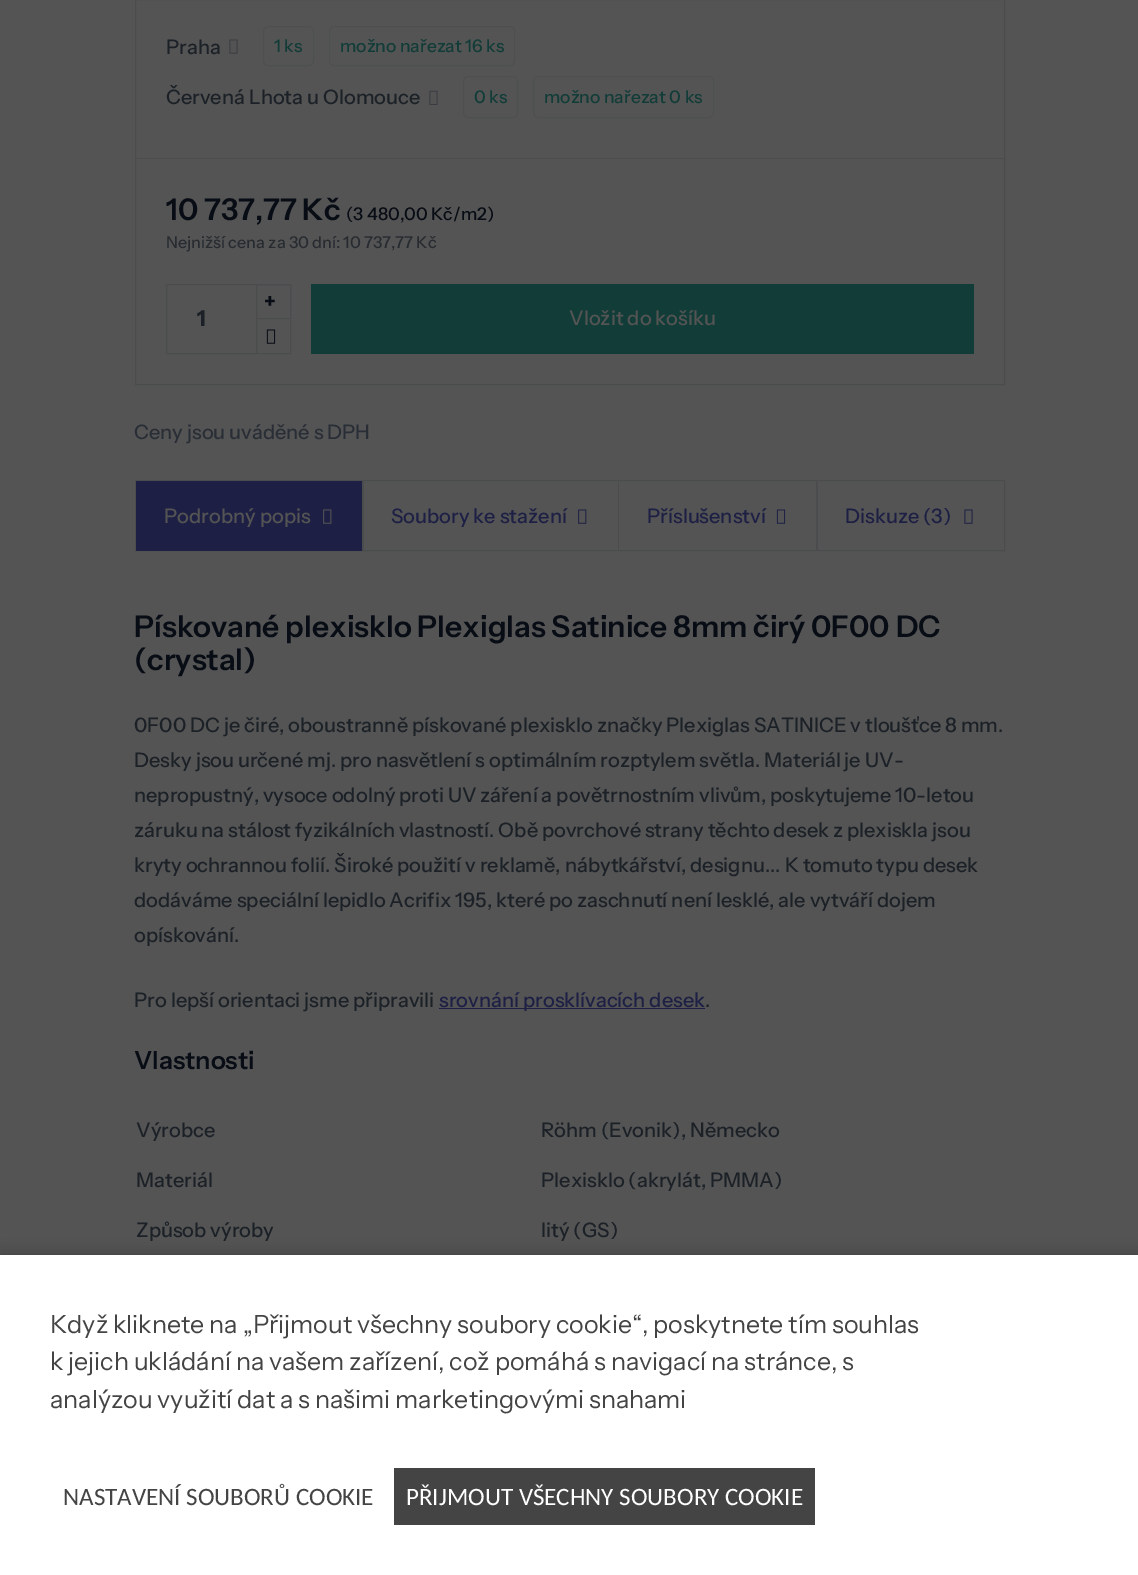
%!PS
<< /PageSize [1138 1575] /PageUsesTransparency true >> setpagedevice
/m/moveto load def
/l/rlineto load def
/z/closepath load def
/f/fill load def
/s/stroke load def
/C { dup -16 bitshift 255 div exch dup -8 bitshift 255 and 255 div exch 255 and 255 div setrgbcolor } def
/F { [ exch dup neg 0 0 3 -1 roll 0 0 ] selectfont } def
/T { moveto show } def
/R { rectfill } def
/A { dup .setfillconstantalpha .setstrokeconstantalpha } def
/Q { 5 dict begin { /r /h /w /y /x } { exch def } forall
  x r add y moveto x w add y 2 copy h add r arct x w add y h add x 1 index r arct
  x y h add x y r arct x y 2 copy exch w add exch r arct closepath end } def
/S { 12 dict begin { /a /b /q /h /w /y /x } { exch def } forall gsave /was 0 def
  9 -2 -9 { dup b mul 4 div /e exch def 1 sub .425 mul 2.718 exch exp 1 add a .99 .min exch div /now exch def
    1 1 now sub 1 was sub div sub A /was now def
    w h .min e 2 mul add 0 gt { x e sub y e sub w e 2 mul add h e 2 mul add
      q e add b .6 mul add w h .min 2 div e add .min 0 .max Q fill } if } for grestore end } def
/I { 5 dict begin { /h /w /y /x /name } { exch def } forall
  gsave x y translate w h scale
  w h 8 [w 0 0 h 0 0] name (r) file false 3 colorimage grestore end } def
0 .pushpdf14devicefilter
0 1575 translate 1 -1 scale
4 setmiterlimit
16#545454 C
0 0 1138 1575 R
16#4A4C4D C
135.5 -.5 869 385 rectstroke
136 158 868 1 R
/InstrumentSans-Medium 20 F
16#1C2127 C
(Praha) 166 54 T
(1.rgb) 229 39 9 15 I
16#4E4F50 C
263.5 26.5 50 39 4.5 Q s
/InstrumentSans-Medium 17.5 F
16#123C37 C
(1 ks) 274 52 T
16#4E4F50 C
329.5 26.5 185 39 4.5 Q s
16#123C37 C
(možno nařezat 16 ks) 340 52 T
/InstrumentSans-Medium 20 F
16#1C2127 C
(Červená Lhota u Olomouce) 166 104 T
(2.rgb) 429 90 9 15 I
16#4E4F50 C
463.5 76.5 54 41 4.5 Q s
/InstrumentSans-Medium 17.5 F
16#123C37 C
(0 ks) 474 103 T
16#4E4F50 C
533.5 76.5 180 41 4.5 Q s
16#123C37 C
(možno nařezat 0 ks) 544 103 T
/InstrumentSans-SemiBold 30 F
16#080C14 C
(10 737,77 Kč) 166 220 T
/InstrumentSans-Medium 17.5 F
(\(3 480,00 Kč/m2\)) 346 220 T
/InstrumentSans-Medium 16.25 F
16#272B30 C
(Nejnižší cena za 30 dní: 10 737,77 Kč) 166 248 T
16#4A4C4D C
166.5 284.5 124 69 rectstroke
256.5 284.5 34 34 rectstroke
/NotoSans-Black 20 F
16#080C14 C
(+) 264 308 T
/InstrumentSans-Bold 22 F
16#1C2127 C
(1) 197 326 T
16#525354 C
290 319 1 34 R
16#4A4C4D C
291 319 m 0 35 l -1 -1.5 l 0 -32.5 l z 256 354 m 0 -35 l 1.5 1 l 0 32.5 l z f
(3.rgb) 266 329 10 15 I
16#123C37 C
311 284 663 70 R
/InstrumentSans-Medium 20 F
16#545454 C
(Vložit do košíku) 569 325 T
16#292E36 C
(Ceny jsou uváděné s DPH) 134 439 T
16#4A4C4D C
135.5 480.5 869 70 rectstroke
16#1D2044 C
136 481 227 70 R
16#545454 C
(Podrobný popis) 164 523 T
(4.rgb) 323 509 9 15 I
16#4A4C4D C
362 551 m 0 -70 l 2 1 l 0 68 l z f
16#1D2044 C
(Soubory ke stažení) 391 523 T
(5.rgb) 578 509 9 15 I
16#4A4C4D C
618 551 m 0 -70 l 1 1 l 0 68 l z f
16#1D2044 C
(Příslušenství) 647 523 T
(6.rgb) 776 509 10 15 I
16#4A4C4D C
816 551 m 0 -70 l 2 1 l 0 68 l z f
16#1D2044 C
(Diskuze \(3\)) 845 523 T
(7.rgb) 964 509 9 15 I
/InstrumentSans-SemiBold 30 F
16#080C14 C
(Pískované plexisklo Plexiglas Satinice 8mm čirý 0F00 DC) 134 637 T
(\(crystal\)) 134 670 T
/InstrumentSans-Medium 20 F
16#1C2127 C
(0F00 DC je čiré, oboustranně pískované plexisklo značky Plexiglas SATINICE v tloušťce 8 mm.) 134 732 T
(Desky jsou určené mj. pro nasvětlení s optimálním rozptylem světla. Materiál je UV-) 134 767 T
(nepropustný, vysoce odolný proti UV záření a povětrnostním vlivům, poskytujeme 10-letou) 134 802 T
(záruku na stálost fyzikálních vlastností. Obě povrchové strany těchto desek z plexiskla jsou) 134 837 T
(kryty ochrannou folií. Široké použití v reklamě, nábytkářství, designu... K tomuto typu desek) 134 872 T
(dodáváme speciální lepidlo Acrifix 195, které po zaschnutí není lesklé, ale vytváří dojem) 134 907 T
(opískování.) 134 942 T
(Pro lepší orientaci jsme připravili) 134 1007 T
16#1D2044 C
439 1008 266 1 R
(srovnání prosklívacích desek) 439 1007 T
16#1C2127 C
(.) 705 1007 T
/InstrumentSans-SemiBold 25 F
16#080C14 C
(Vlastnosti) 134 1069 T
/InstrumentSans-Medium 20 F
16#1C2127 C
(Výrobce) 136 1137 T
(Röhm \(Evonik\), Německo) 541 1137 T
(Materiál) 136 1187 T
(Plexisklo \(akrylát, PMMA\)) 541 1187 T
(Způsob výroby) 136 1237 T
(litý \(GS\)) 541 1237 T
16#000000 C
0 1255 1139 320 0 7.5 .25 S
16#FFFFFF C
0 1255 1138 320 R
/InstrumentSans-Regular 25 F
16#444444 C
(Když kliknete na „Přijmout všechny soubory cookie“, poskytnete tím souhlas) 50 1333 T
(k jejich ukládání na vašem zařízení, což pomáhá s navigací na stránce, s) 50 1370 T
(analýzou využití dat a s našimi marketingovými snahami) 50 1408 T
/Carlito-Regular 25 F
(NASTAVENÍ SOUBORŮ COOKIE) 63 1505 T
394 1468 421 57 R
16#FFFFFF C
(PŘIJMOUT VŠECHNY SOUBORY COOKIE) 406 1505 T
.poppdf14devicefilter showpage
